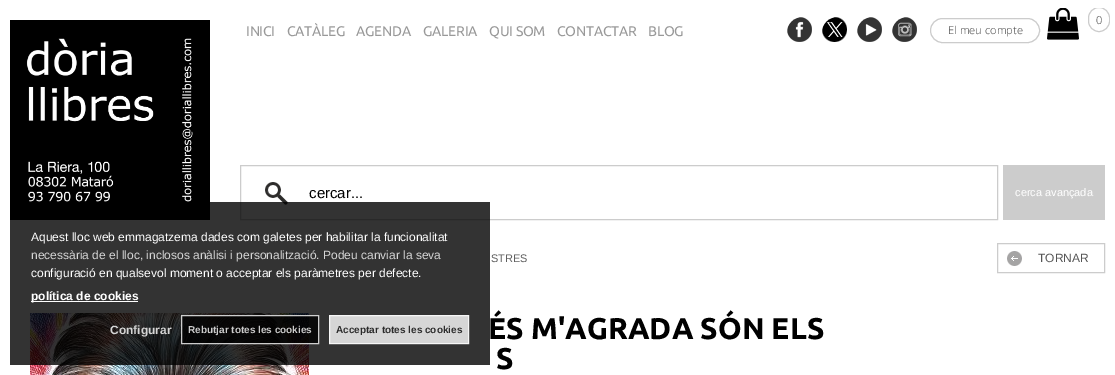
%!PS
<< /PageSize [1115 375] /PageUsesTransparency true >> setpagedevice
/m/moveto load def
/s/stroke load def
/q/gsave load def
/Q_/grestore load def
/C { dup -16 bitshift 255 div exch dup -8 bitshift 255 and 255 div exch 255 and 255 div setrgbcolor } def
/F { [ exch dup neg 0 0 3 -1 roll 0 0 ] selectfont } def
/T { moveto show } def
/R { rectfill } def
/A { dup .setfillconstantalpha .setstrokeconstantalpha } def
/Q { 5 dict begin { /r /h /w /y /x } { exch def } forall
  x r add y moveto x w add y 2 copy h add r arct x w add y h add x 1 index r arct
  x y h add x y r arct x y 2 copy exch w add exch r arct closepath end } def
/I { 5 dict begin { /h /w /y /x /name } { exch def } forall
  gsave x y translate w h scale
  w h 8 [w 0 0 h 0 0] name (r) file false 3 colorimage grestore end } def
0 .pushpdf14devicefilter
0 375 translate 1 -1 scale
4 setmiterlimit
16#FFFFFF C
0 0 1115 375 R
(1.rgb) 10 20 200 200 I
/Ubuntu-Regular 14 F
16#999999 C
246 36 m -.25 0 (INICI) ashow
287 36 m -.25 0 (CATÀLEG) ashow
356 36 m -.25 0 (AGENDA) ashow
423 36 m -.25 0 (GALERIA) ashow
489 36 m -.25 0 (QUI SOM) ashow
557 36 m -.25 0 (CONTACTAR) ashow
648 36 m -.25 0 (BLOG) ashow
(2.rgb) 787 17 25 25 I
(3.rgb) 822 17 25 25 I
(4.rgb) 857 17 25 25 I
(5.rgb) 892 17 25 25 I
(6.rgb) 1047 8 32 32 I
q
1047 8 63 32 rectclip
16#CCCCCC C
1088.5 7.5 21 24 10.5 Q s
Q_
/NotoSans-Light 11 F
16#555555 C
(0) 1096 24 T
16#CCCCCC C
930.5 18.5 109 24 12 Q s
16#555555 C
(El meu compte) 948 34 T
16#CCCCCC C
240.5 165.5 757 54 rectstroke
(7.rgb) 265 182 23 23 I
/LiberationSans-Regular 15 F
16#000000 C
(cercar...) 309 198 T
16#CCCCCC C
1003 165 102 55 R
/LiberationSans-Regular 11 F
16#FFFFFF C
(cerca avançada) 1015 196 T
(9.rgb) 30 313 279 62 I
0.8 A
16#000000 C
10 202 480 163 R
/LiberationSans-Regular 12 F
1 A
16#FFFFFF C
(Aquest lloc web emmagatzema dades com galetes per habilitar la funcionalitat) 31 241 T
16#D5D5D5 C
(necessària de el lloc, inclosos anàlisi i personalització. Podeu canviar la seva) 31 259 T
16#FFFFFF C
(configuració en qualsevol moment o acceptar els paràmetres per defecte.) 31 277 T
31 301 107 1 R
/LiberationSans-Bold 12 F
(política de cookies) 31 300 T
16#D5D5D5 C
(Configurar) 110 334 T
0.8 A
16#000000 C
181 315 138 29 R
16#FFFFFF C
181.5 315.5 137 28 rectstroke
/LiberationSans-Bold 10 F
1 A
16#CDCDCD C
(Rebutjar totes les cookies) 188 333 T
0.8 A
16#FFFFFF C
329 315 140 29 R
329.5 315.5 139 28 rectstroke
1 A
16#2A2A2A C
(Acceptar totes les cookies) 336 333 T
/LiberationSans-Regular 11 F
16#5F5F5F C
(STRES) 491 262 T
(8.rgb) 1007 251 15 15 I
16#CCCCCC C
997.5 243.5 107 29 rectstroke
/LiberationSans-Regular 12 F
16#555555 C
(TORNAR) 1038 262 T
/Ubuntu-Bold 30 F
16#000000 C
(ÉS M'AGRADA SÓN ELS) 488 339 T
(S) 496 369 T
.poppdf14devicefilter showpage
